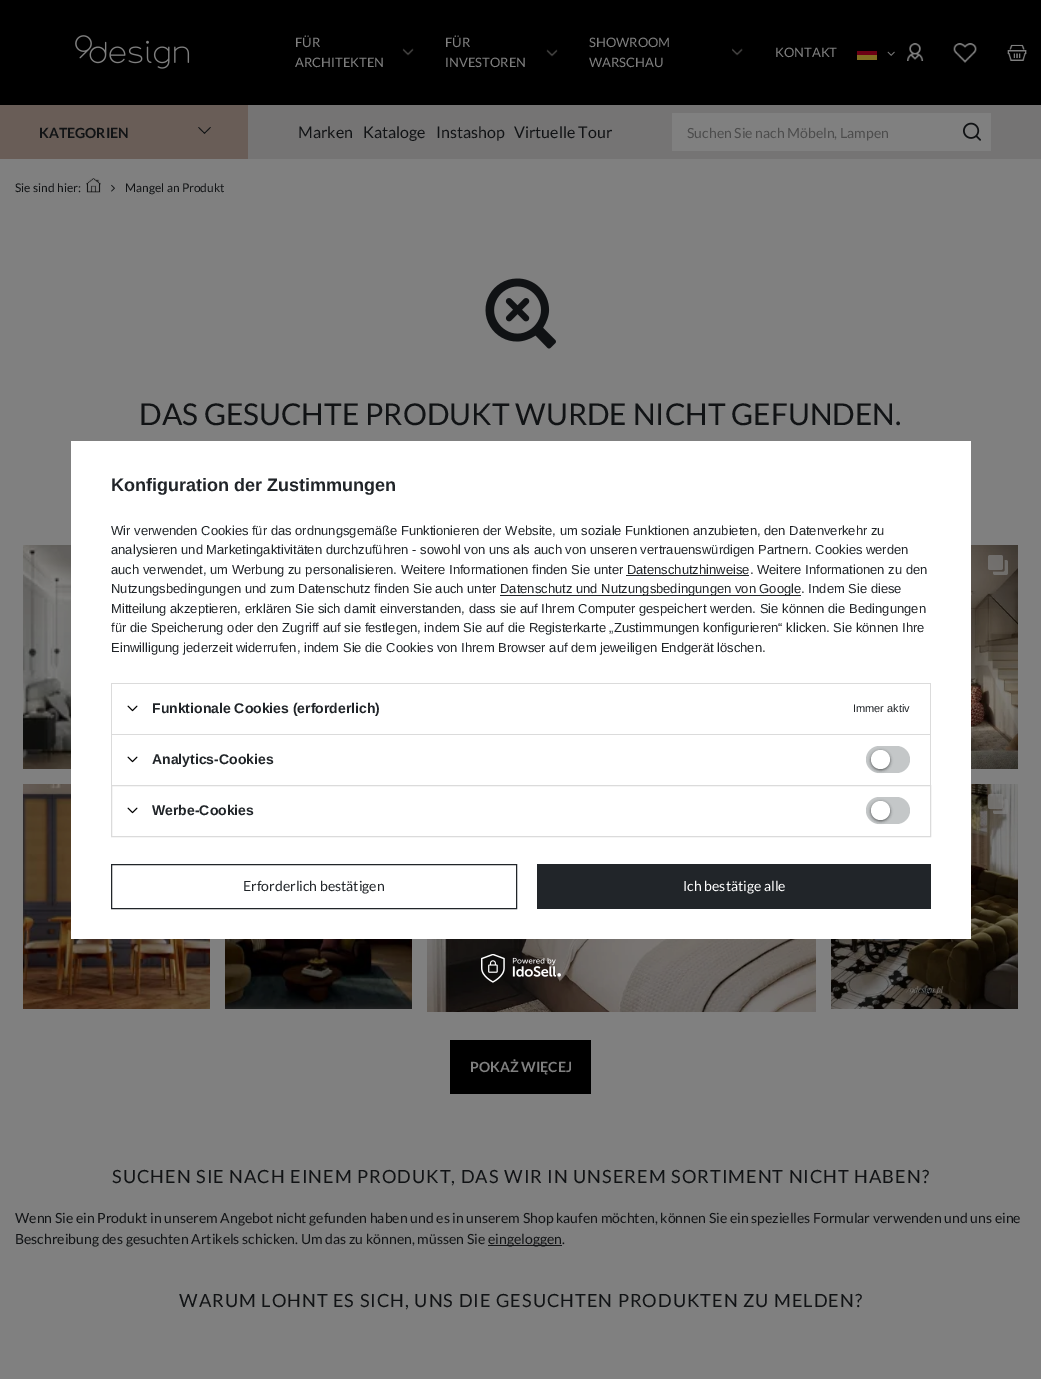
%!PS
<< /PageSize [1041 1379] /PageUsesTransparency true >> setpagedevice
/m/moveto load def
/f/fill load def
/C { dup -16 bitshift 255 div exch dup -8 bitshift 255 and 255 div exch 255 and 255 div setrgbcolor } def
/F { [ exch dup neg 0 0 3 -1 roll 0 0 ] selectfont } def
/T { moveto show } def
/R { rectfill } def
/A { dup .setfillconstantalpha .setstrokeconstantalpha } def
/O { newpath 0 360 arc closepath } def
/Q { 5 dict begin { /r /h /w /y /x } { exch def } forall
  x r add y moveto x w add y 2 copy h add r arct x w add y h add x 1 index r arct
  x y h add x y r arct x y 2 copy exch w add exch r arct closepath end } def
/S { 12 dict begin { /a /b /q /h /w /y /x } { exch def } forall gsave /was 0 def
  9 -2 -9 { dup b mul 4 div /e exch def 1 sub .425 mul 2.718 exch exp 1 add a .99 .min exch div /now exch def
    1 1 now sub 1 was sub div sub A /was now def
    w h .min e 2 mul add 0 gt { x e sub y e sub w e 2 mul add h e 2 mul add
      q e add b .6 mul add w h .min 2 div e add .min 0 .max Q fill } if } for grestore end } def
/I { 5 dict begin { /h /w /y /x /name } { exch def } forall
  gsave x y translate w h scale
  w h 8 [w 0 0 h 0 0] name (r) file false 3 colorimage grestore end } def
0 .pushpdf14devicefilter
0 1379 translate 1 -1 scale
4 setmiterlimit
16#808080 C
0 0 1041 1379 R
16#000000 C
0 0 1041 105 R
(1.rgb) 75 35 115 34 I
/Lato-Regular 13 F
16#808080 C
(FÜR) 295 47 T
(ARCHITEKTEN) 295 67 T
(2.rgb) 402 48 12 8 I
(FÜR) 445 47 T
(INVESTOREN) 445 67 T
(3.rgb) 546 49 12 8 I
(SHOWROOM) 589 47 T
(WARSCHAU) 589 67 T
(4.rgb) 732 48 11 8 I
(KONTAKT) 775 57 T
16#6C0014 C
857 51 20 4 R
16#806D22 C
857 55 20 5 R
(5.rgb) 887 51 8 5 I
(6.rgb) 907 43 17 18 I
(7.rgb) 953 43 24 20 I
(8.rgb) 1007 44 20 17 I
16#757474 C
248 105 793 54 R
16#695D57 C
0 105 248 54 R
/Lato-Bold 14 F
16#111315 C
(KATEGORIEN) 39 138 T
(9.rgb) 198 127 13 7 I
/Lato-Regular 16 F
(Marken) 298 138 T
(Kataloge) 363 138 T
(Instashop) 436 138 T
(Virtuelle Tour) 514 138 T
16#808080 C
672 113 319 38 R
/Lato-Regular 14 F
16#4C4C4C C
(Suchen Sie nach Möbeln, Lampen) 687 138 T
(10.rgb) 963 122 18 19 I
/Lato-Regular 12 F
16#111315 C
(Sie sind hier:) 15 192 T
(11.rgb) 86 178 15 15 I
(12.rgb) 111 184 4 8 I
(Mangel an Produkt) 125 192 T
(13.rgb) 485 278 71 71 I
/Lato-Regular 30 F
(DAS GESUCHTE PRODUKT WURDE NICHT GEFUNDEN.) 139 425 T
(14.rgb) 23 545 48 224 I
(15.rgb) 971 545 47 224 I
(16.rgb) 988 555 20 20 I
(17.rgb) 23 784 187 225 I
(18.rgb) 225 939 187 70 I
(19.rgb) 427 939 389 73 I
(20.rgb) 831 784 187 225 I
(21.rgb) 988 794 20 20 I
16#000000 C
450 1040 141 54 R
/Lato-Bold 14 F
16#808080 C
(POKAŻ WIĘCEJ) 470 1072 T
/Lato-Regular 18.2 F
16#111315 C
112 1183 m 1 0 (SUCHEN SIE NACH EINEM PRODUKT, DAS WIR IN UNSEREM SORTIMENT NICHT HABEN?) ashow
/Lato-Regular 14 F
(Wenn Sie ein Produkt in unserem Angebot nicht gefunden haben und es in unserem Shop kaufen möchten, können Sie ein spezielles Formular verwenden und uns eine) 15 1223 T
(Beschreibung des gesuchten Artikels schicken. Um das zu können, müssen Sie) 15 1244 T
488 1245 74 1 R
(eingeloggen.) 488 1244 T
/Lato-Regular 18.2 F
179 1307 m 1 0 (WARUM LOHNT ES SICH, UNS DIE GESUCHTEN PRODUKTEN ZU MELDEN?) ashow
16#FFFFFF C
71 441 900 498 R
/LiberationSans-Bold 18 F
16#212529 C
(Konfiguration der Zustimmungen) 111 491 T
/LiberationSans-Regular 13 F
(Wir verwenden Cookies für das ordnungsgemäße Funktionieren der Website, um soziale Funktionen anzubieten, den Datenverkehr zu) 111 535 T
(analysieren und Marketingaktivitäten durchzuführen - sowohl von uns als auch von unseren vertrauenswürdigen Partnern. Cookies werden) 111 554 T
(auch verwendet, um Werbung zu personalisieren. Weitere Informationen finden Sie unter Datenschutzhinweise. Weitere Informationen zu den) 111 574 T
626 575 123 1 R
(Nutzungsbedingungen und zum Datenschutz finden Sie auch unter) 111 593 T
500 595 301 1 R
(Datenschutz und Nutzungsbedingungen von Google. Indem Sie diese) 500 593 T
(Mitteilung akzeptieren, erklären Sie sich damit einverstanden, dass sie auf Ihrem Computer gespeichert werden. Sie können die Bedingungen) 111 613 T
(für die Speicherung oder den Zugriff auf sie festlegen, indem Sie auf die Registerkarte „Zustimmungen konfigurieren“ klicken. Sie können Ihre) 111 632 T
(Einwilligung jederzeit widerrufen, indem Sie die Cookies von Ihrem Browser auf dem jeweiligen Endgerät löschen.) 111 652 T
16#DBDBDB C
111 683 820 1 R
930 683 1 51 R
111 683 1 51 R
(22.rgb) 127 705 11 7 I
/LiberationSans-Bold 14 F
16#212529 C
(Funktionale Cookies \(erforderlich\)) 152 713 T
/LiberationSans-Regular 11 F
(Immer aktiv) 853 712 T
16#DBDBDB C
111 734 820 1 R
930 734 1 51 R
111 734 1 51 R
(22.rgb) 127 756 11 7 I
/LiberationSans-Bold 14 F
16#212529 C
(Analytics-Cookies) 152 764 T
16#C4C7C8 C
866 746 44 27 13.5 Q f
16#000000 C
871 751 19 19 9.5 1.5 .56 S
16#FFFFFF C
880.5 759.5 9.5 O f
16#DBDBDB C
111.5 785.5 819 51 rectstroke
(22.rgb) 127 807 11 7 I
16#212529 C
(Werbe-Cookies) 152 815 T
16#C4C7C8 C
866 797 44 27 13.5 Q f
16#000000 C
871 802 19 19 9.5 1.5 .56 S
16#FFFFFF C
880.5 810.5 9.5 O f
16#212529 C
111.5 864.5 405 44 rectstroke
/Lato-Regular 14 F
(Erforderlich bestätigen) 243 891 T
537 864 394 45 R
16#FFFFFF C
(Ich bestätige alle) 683 891 T
(23.rgb) 481 954 80 29 I
.poppdf14devicefilter showpage
